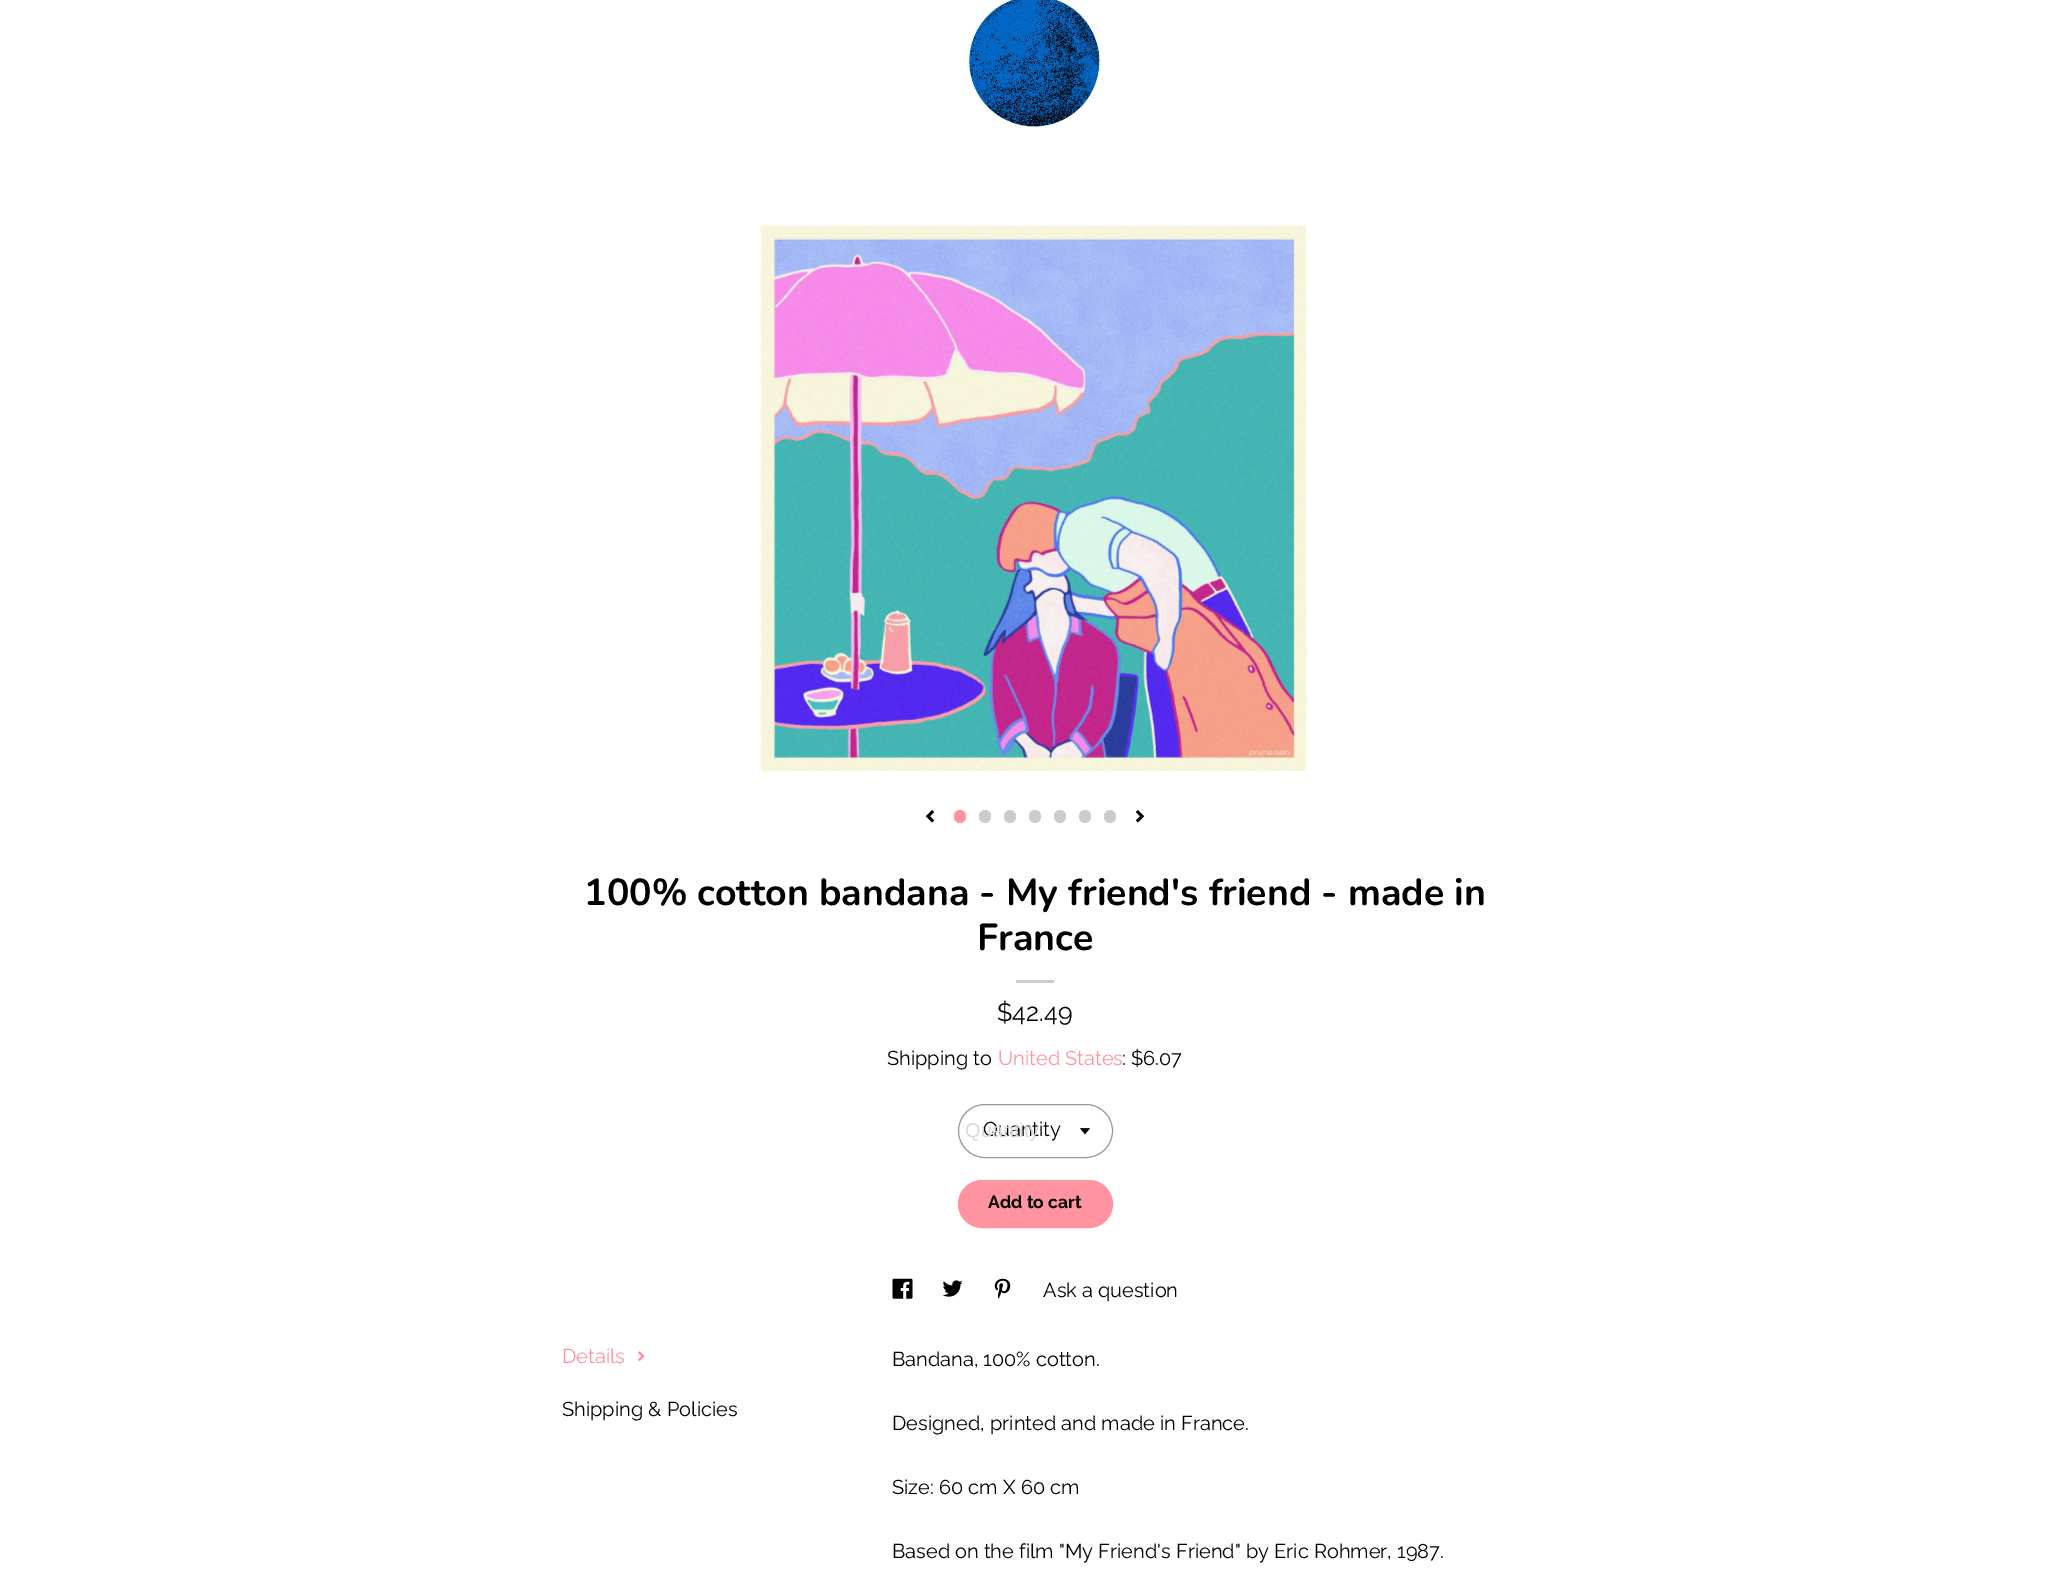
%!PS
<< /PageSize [2069 1574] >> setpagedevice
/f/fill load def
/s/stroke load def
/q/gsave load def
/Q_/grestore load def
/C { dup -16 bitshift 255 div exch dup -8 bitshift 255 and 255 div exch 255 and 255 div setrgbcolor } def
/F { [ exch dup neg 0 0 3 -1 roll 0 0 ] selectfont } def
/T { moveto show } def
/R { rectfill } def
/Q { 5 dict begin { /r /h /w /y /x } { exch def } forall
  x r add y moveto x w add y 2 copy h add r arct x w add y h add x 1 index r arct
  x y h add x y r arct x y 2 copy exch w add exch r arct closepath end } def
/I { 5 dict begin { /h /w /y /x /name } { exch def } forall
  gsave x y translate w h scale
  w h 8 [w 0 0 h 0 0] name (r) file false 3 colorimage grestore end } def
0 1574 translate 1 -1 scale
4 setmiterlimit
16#FFFFFF C
0 0 2069 1574 R
(1.rgb) 968 0 132 127 I
(2.rgb) 760 224 548 548 I
(3.rgb) 925 810 10 13 I
16#FF94A0 C
954 810 12 13 6 Q f
16#CCCCCC C
979 810 12 13 6 Q f
1004 810 12 13 6 Q f
1029 810 12 13 6 Q f
1054 810 12 13 6 Q f
1079 810 12 13 6 Q f
1104 810 12 13 6 Q f
(4.rgb) 1135 810 10 13 I
/Nunito-Bold 37.5 F
16#000000 C
(100% cotton bandana - My friend's friend - made in) 584 905 T
(France) 977 950 T
16#CCCCCC C
1016 980 38 3 R
/Raleway-Regular 25 F
16#000000 C
($42.49) 997 1021 T
/Raleway-Regular 20 F
(Shipping to) 887 1065 T
16#FF94A0 C
(United States) 998 1065 T
16#000000 C
(: $6.07) 1122 1065 T
16#999999 C
958.5 1104.5 154 53 26.5 Q s
16#000000 C
(Quantity) 983 1136 T
/LiberationSans-Regular 20 F
16#D9D9D9 C
(Quantity) 965 1137 T
(5.rgb) 1080 1128 10 7 I
16#FF94A0 C
958.5 1180.5 154 47 23.5 Q q f Q_
s
/Raleway-Bold 17.5 F
16#000000 C
(Add to cart) 988 1208 T
(6.rgb) 892 1278 21 21 I
(7.rgb) 942 1280 21 17 I
(8.rgb) 994 1278 17 21 I
/Raleway-Regular 20 F
(Ask a question) 1043 1297 T
16#FF94A0 C
(Details) 562 1363 T
(9.rgb) 638 1351 7 11 I
16#000000 C
(Shipping & Policies) 562 1416 T
(Bandana, 100% cotton.) 892 1366 T
(Designed, printed and made in France.) 892 1430 T
(Size: 60 cm X 60 cm) 892 1494 T
(Based on the film "My Friend's Friend" by Eric Rohmer, 1987.) 892 1558 T
showpage
